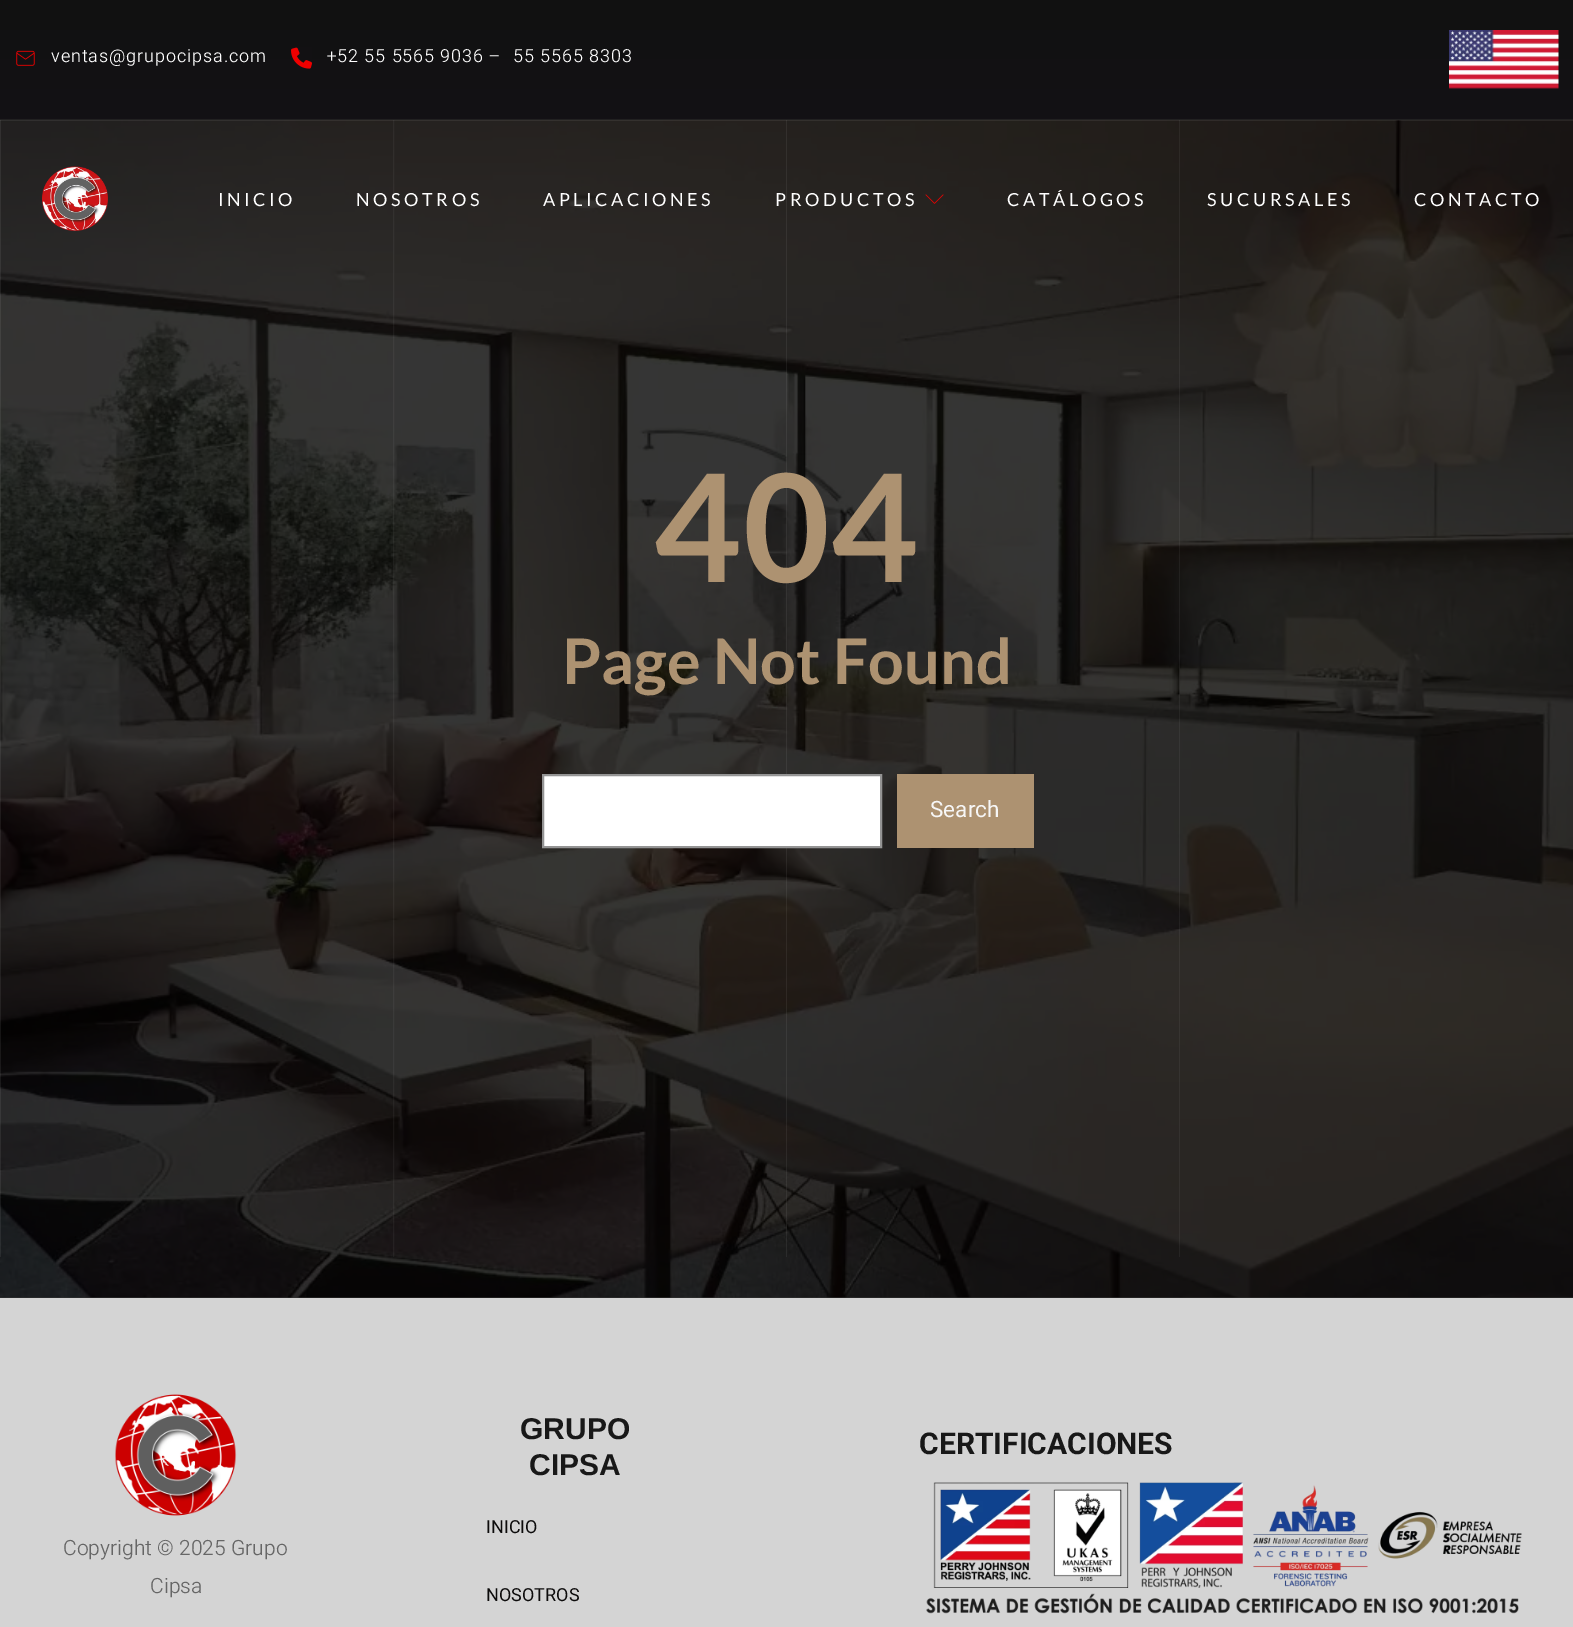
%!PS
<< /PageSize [1573 1627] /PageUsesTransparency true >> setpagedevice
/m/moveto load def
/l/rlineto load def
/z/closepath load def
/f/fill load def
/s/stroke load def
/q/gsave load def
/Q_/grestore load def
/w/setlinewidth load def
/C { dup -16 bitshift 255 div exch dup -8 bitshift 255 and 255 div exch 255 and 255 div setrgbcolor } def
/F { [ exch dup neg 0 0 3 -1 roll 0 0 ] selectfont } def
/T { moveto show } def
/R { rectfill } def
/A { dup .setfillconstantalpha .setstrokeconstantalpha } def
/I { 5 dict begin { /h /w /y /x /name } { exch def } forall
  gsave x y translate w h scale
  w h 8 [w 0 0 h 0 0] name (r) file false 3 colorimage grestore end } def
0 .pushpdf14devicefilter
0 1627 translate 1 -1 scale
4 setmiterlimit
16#353535 C
0 0 1573 1627 R
q 0 0 m 1573 0 l 0 119 l -1573 0 l z clip newpath
<< /ShadingType 2 /ColorSpace /DeviceRGB /Coords [787 0 787 119] /Extend [true true] /Function << /FunctionType 2 /Domain [0 1] /C0 [.067 .067 .067] /C1 [.075 .067 .082] /N 1 >> >> shfill Q_
q 0 119 m 1573 0 l 0 1 l -1573 0 l z clip newpath
<< /ShadingType 2 /ColorSpace /DeviceRGB /Coords [787 118 787 237] /Extend [true true] /Function << /FunctionType 2 /Domain [0 1] /C0 [.067 .067 .067] /C1 [.075 .067 .082] /N 1 >> >> shfill Q_
(6.rgb) 0 120 1573 1178 I
(7.rgb) 0 120 1180 1137 I
0.08 A
16#E1E1E1 C
0 119 1573 2 R
1 A
(1.rgb) 16 50 19 16 I
/Heebo-Light 18 F
16#FFFFFF C
51 62 m .9 0 (ventas@grupocipsa.com) ashow
(2.rgb) 291 47 21 22 I
327 62 m .9 0 (+52 55 5565 9036 –  55 5565 8303) ashow
(3.rgb) 1449 30 110 59 I
(4.rgb) 42 166 66 65 I
/Lato-Regular 18 F
218 206 m 3.6 0 (INICIO) ashow
356 206 m 3.6 0 (NOSOTROS) ashow
543 206 m 3.6 0 (APLICACIONES) ashow
775 206 m 3.6 0 (PRODUCTOS) ashow
(5.rgb) 925 194 19 10 I
1007 206 m 3.6 0 (CATÁLOGOS) ashow
1207 206 m 3.6 0 (SUCURSALES) ashow
1414 206 m 3.6 0 (CONTACTO) ashow
/Lato-Bold 150 F
16#AD9271 C
654 582 m 1.5 0 (404) ashow
/Lato-Bold 63 F
(Page Not Found) 562 684 T
16#FFFFFF C
543 775 m 338 0 l 0 72 l -338 0 l z q f Q_
16#949494 C
2 w
s
16#AD9271 C
897 774 137 74 R
/Roboto-Regular 22.5 F
16#F6F6F6 C
(Search) 930 817 T
16#D4D4D4 C
0 1298 1573 329 R
/LiberationSans-Bold 30 F
16#181818 C
(GRUPO) 520 1439 T
(CIPSA) 529 1475 T
/Roboto-Regular 18 F
16#0D0C0C C
(INICIO) 486 1533 T
(NOSOTROS) 486 1601 T
/Roboto-Bold 30 F
16#181818 C
(CERTIFICACIONES) 919 1454 T
(8.rgb) 926 1482 596 132 I
(9.rgb) 115 1394 122 122 I
/Heebo-Light 21 F
16#666666 C
(Copyright © 2025 Grupo) 63 1555 T
(Cipsa) 150 1593 T
.poppdf14devicefilter showpage
